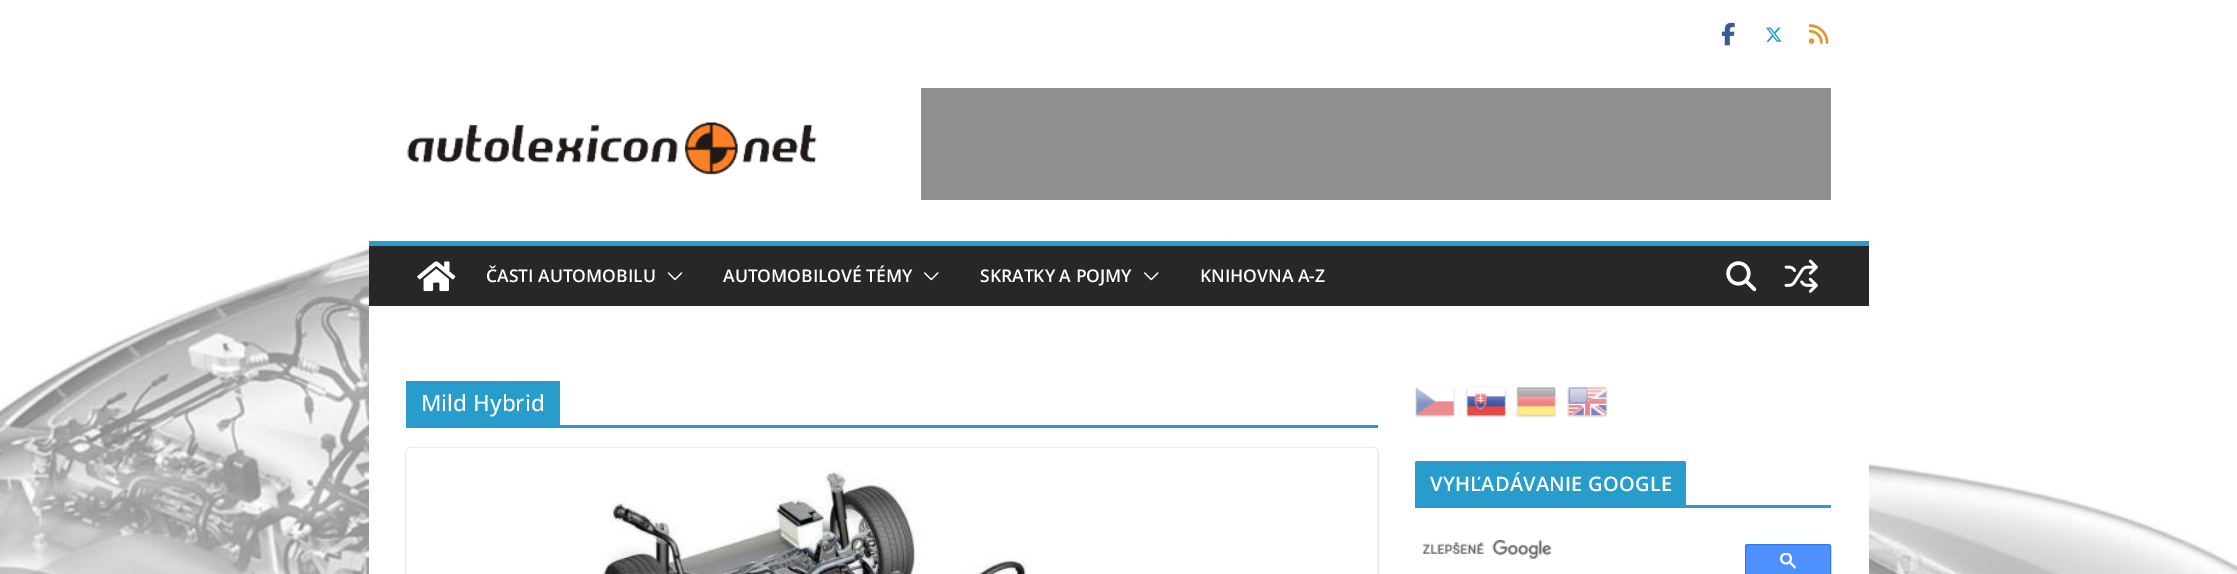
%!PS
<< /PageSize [2237 574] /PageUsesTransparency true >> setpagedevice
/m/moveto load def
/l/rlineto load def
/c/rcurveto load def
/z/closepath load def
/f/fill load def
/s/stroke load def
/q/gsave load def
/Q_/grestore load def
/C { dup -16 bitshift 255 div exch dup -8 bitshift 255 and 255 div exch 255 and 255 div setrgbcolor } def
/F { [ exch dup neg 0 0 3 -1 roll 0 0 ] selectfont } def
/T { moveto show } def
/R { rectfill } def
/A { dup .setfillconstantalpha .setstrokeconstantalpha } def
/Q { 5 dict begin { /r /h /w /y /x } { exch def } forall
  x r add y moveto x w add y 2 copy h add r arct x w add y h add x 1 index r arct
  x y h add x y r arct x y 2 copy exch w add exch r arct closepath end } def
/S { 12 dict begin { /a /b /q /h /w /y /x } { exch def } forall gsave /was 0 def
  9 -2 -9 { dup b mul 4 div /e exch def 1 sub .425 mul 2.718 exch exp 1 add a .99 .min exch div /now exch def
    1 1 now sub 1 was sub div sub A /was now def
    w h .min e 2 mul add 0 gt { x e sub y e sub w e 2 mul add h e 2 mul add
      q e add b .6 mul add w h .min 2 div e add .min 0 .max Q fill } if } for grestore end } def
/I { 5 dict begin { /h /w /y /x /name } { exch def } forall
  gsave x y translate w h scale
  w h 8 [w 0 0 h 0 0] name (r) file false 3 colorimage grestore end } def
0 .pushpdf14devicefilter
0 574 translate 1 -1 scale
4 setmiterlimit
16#FFFFFF C
0 0 2237 574 R
(1.rgb) 0 146 2237 428 I
378 146 846 95 R
(2.rgb) 1721 22 14 24 I
(3.rgb) 1766 27 16 15 I
(4.rgb) 1808 24 21 20 I
(5.rgb) 407 122 410 54 I
16#8F8F8F C
921 88 910 112 R
16#27272A C
369 246 1500 60 R
16#289DCC C
369 241 1500 5 R
(6.rgb) 417 261 39 31 I
/OpenSans-SemiBold 17.5 F
16#FFFFFF C
(ČASTI AUTOMOBILU) 486 282 T
(7.rgb) 667 272 16 9 I
(AUTOMOBILOVÉ TÉMY) 723 282 T
(8.rgb) 924 272 15 9 I
(SKRATKY A POJMY) 980 282 T
(8.rgb) 1144 272 15 9 I
(KNIHOVNA A-Z) 1200 282 T
(9.rgb) 1726 261 31 31 I
(10.rgb) 1784 259 34 34 I
369 306 1500 268 R
16#289DCC C
406 425 972 3 R
406 381 154 44 R
/OpenSans-Medium 22.5 F
16#FFFFFF C
(Mild Hybrid) 421 411 T
16#000000 C
406 448 972 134 5 1 .24 S
(11.rgb) 406 448 972 126 I
(12.rgb) 1415 387 40 31 I
(13.rgb) 1466 386 41 32 I
(14.rgb) 1516 387 40 31 I
(15.rgb) 1567 386 41 32 I
16#289DCC C
1415 505 416 3 R
1417.5 461 m 266 0 l 1.5 0 2.5 1 2.5 2.5 c 0 41.5 l -271 0 l 0 -41.5 l 0 -1.5 1 -2.5 2.5 -2.5 c z f
/OpenSans-SemiBold 20 F
16#FFFFFF C
1430 491 m .25 0 (VYHĽADÁVANIE GOOGLE) ashow
(16.rgb) 1422 540 130 19 I
16#4D90FE C
1745.5 544.5 85 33 2 Q q f Q_
16#3079ED C
s
(17.rgb) 1780 553 16 16 I
.poppdf14devicefilter showpage
